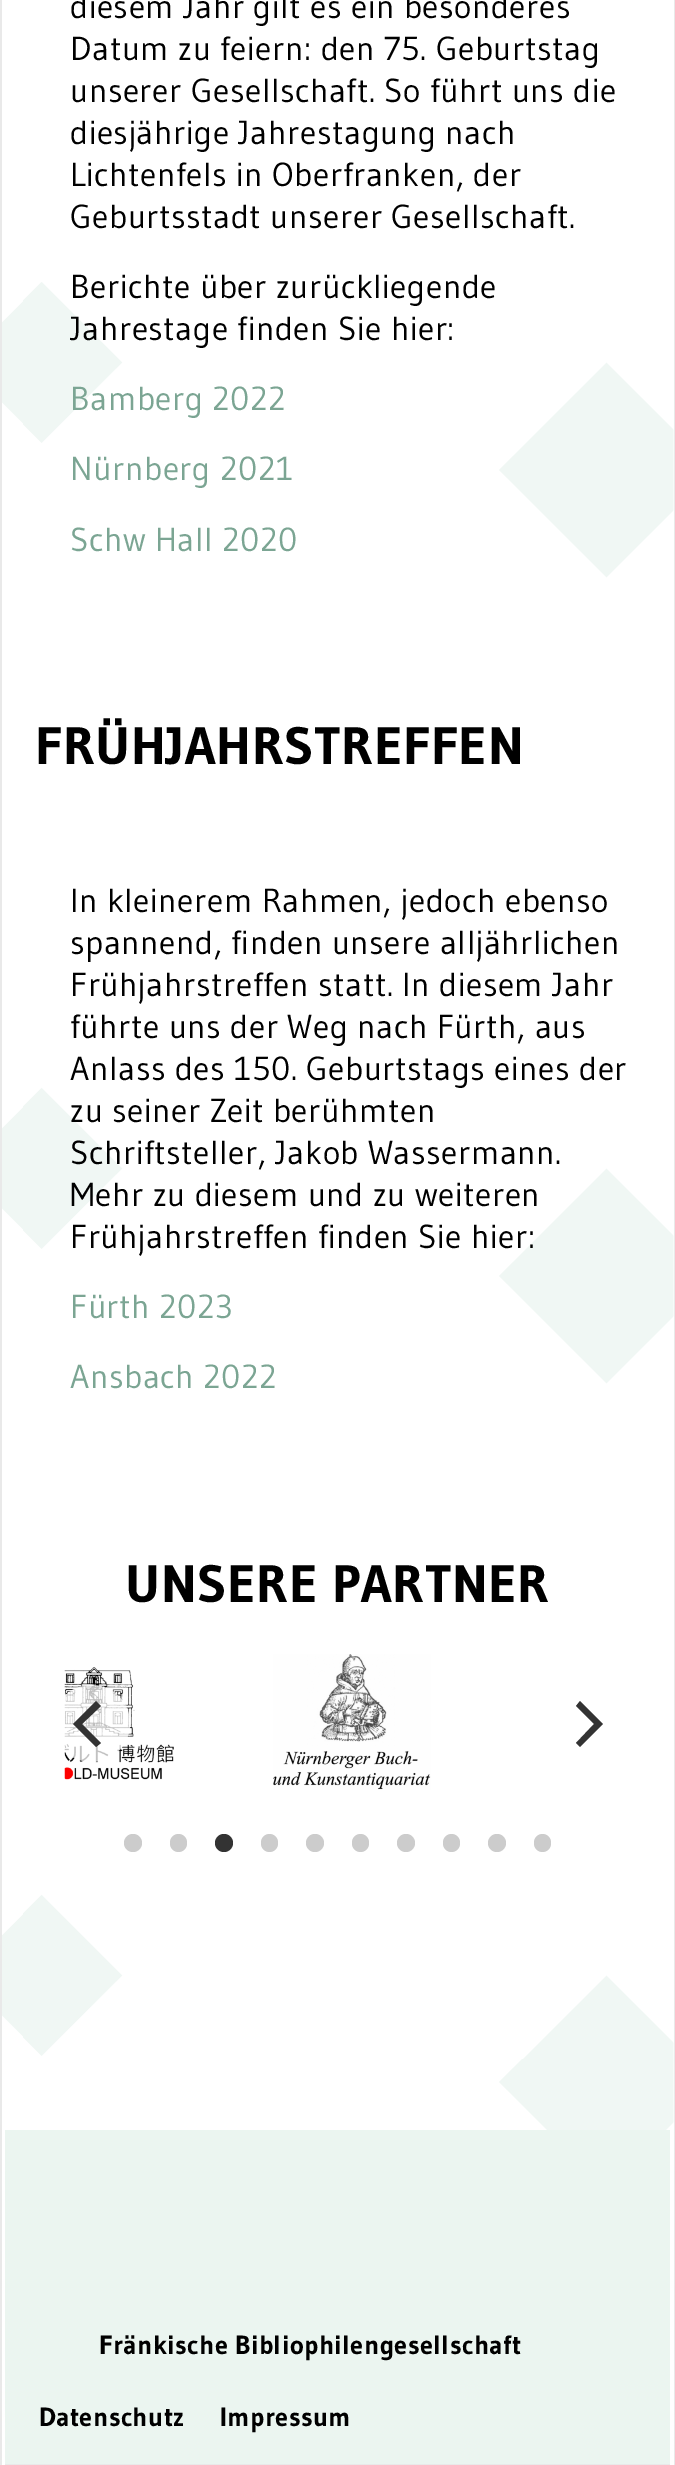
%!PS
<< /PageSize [675 2465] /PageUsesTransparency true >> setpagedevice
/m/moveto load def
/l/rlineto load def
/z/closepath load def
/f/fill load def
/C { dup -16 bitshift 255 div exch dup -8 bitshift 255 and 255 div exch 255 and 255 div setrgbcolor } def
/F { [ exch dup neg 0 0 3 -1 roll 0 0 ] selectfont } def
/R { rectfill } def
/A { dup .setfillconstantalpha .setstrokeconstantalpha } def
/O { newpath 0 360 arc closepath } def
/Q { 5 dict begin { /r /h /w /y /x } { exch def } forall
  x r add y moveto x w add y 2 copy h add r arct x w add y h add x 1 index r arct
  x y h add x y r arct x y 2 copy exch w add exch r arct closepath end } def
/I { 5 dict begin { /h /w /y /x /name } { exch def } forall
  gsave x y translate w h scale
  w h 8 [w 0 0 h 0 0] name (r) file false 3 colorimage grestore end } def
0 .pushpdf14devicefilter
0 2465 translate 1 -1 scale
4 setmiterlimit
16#E9E9E9 C
0 0 675 2465 R
16#FFFFFF C
2 0 672 2465 R
(1.rgb) 2 282 672 1848 I
/Gudea-Regular 33.25 F
16#000000 C
70 18 m .55 0 (diesem Jahr gilt es ein besonderes) ashow
70 60 m .55 0 (Datum zu feiern: den 75. Geburtstag) ashow
70 102 m .55 0 (unserer Gesellschaft. So führt uns die) ashow
70 144 m .55 0 (diesjährige Jahrestagung nach) ashow
70 186 m .55 0 (Lichtenfels in Oberfranken, der) ashow
70 228 m .55 0 (Geburtsstadt unserer Gesellschaft.) ashow
70 298 m .55 0 (Berichte über zurückliegende) ashow
70 340 m .55 0 (Jahrestage finden Sie hier:) ashow
16#7BA593 C
70 410 m .55 0 (Bamberg 2022) ashow
70 480 m .55 0 (Nürnberg 2021) ashow
70 551 m .55 0 (Schw Hall 2020) ashow
/Gudea-Bold 52.5 F
16#000000 C
35 764 m .8 0 (FRÜHJAHRSTREFFEN) ashow
/Gudea-Regular 33.25 F
70 912 m .55 0 (In kleinerem Rahmen, jedoch ebenso) ashow
70 954 m .55 0 (spannend, finden unsere alljährlichen) ashow
70 996 m .55 0 (Frühjahrstreffen statt. In diesem Jahr) ashow
70 1038 m .55 0 (führte uns der Weg nach Fürth, aus) ashow
70 1080 m .55 0 (Anlass des 150. Geburtstags eines der) ashow
70 1122 m .55 0 (zu seiner Zeit berühmten) ashow
70 1164 m .55 0 (Schriftsteller, Jakob Wassermann.) ashow
70 1206 m .55 0 (Mehr zu diesem und zu weiteren) ashow
70 1248 m .55 0 (Frühjahrstreffen finden Sie hier:) ashow
16#7BA593 C
70 1318 m .55 0 (Fürth 2023) ashow
70 1388 m .55 0 (Ansbach 2022) ashow
/Gudea-Bold 52.5 F
16#000000 C
125 1602 m .8 0 (UNSERE PARTNER) ashow
(2.rgb) 64 1667 110 113 I
(3.rgb) 273 1654 158 136 I
0.75 A
16#FFFFFF C
91.5 1723.5 38.5 O f
1 A
16#333333 C
73 1724 m 23 23 l 5 -4 l -19 -19 l 19 -18 l -5 -5 l z f
603 1724 m -23 -23 l -4 5 l 18 18 l -18 19 l 4 4 l z f
16#CCCCCC C
133 1843 9 O f
170 1834 17 18 8.5 Q f
16#333333 C
224 1843 9 O f
16#CCCCCC C
261 1834 17 18 8.5 Q f
315 1843 9 O f
352 1834 17 18 8.5 Q f
406 1843 9 O f
443 1834 17 18 8.5 Q f
497 1843 9 O f
534 1834 17 18 8.5 Q f
16#EBF5F0 C
5 2130 665 334 R
16#E9E9E9 C
5 2464 665 1 R
/Gudea-Bold 26.25 F
16#000000 C
99 2354 m .4 0 (Fränkische Bibliophilengesellschaft) ashow
39 2426 m .4 0 (Datenschutz) ashow
220 2426 m .4 0 (Impressum) ashow
.poppdf14devicefilter showpage
